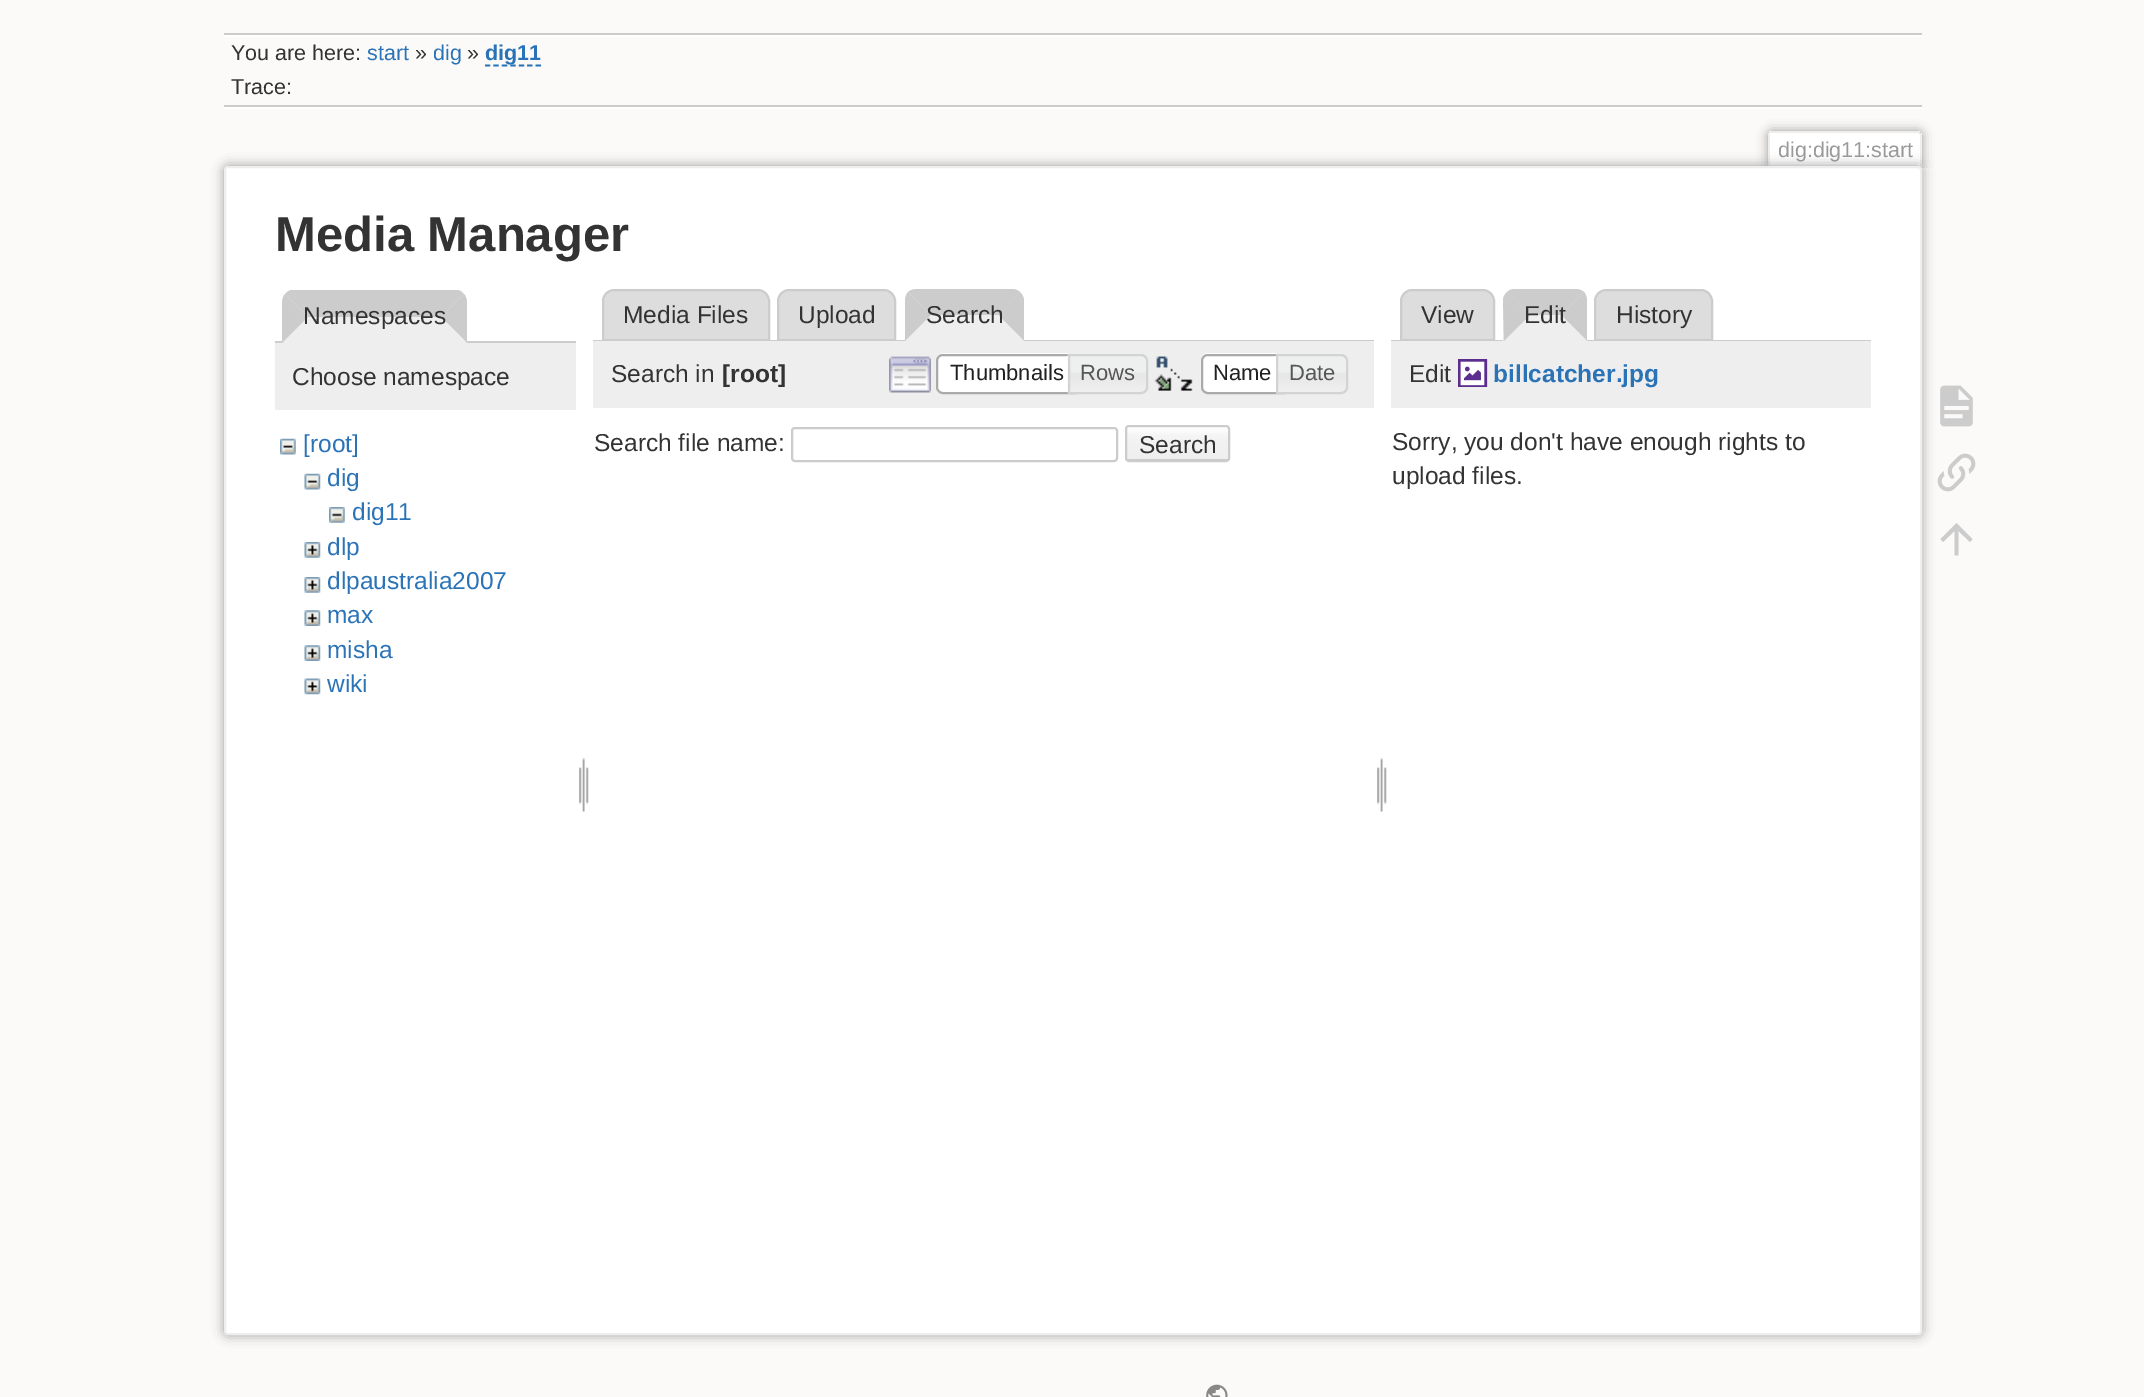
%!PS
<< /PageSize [2144 1397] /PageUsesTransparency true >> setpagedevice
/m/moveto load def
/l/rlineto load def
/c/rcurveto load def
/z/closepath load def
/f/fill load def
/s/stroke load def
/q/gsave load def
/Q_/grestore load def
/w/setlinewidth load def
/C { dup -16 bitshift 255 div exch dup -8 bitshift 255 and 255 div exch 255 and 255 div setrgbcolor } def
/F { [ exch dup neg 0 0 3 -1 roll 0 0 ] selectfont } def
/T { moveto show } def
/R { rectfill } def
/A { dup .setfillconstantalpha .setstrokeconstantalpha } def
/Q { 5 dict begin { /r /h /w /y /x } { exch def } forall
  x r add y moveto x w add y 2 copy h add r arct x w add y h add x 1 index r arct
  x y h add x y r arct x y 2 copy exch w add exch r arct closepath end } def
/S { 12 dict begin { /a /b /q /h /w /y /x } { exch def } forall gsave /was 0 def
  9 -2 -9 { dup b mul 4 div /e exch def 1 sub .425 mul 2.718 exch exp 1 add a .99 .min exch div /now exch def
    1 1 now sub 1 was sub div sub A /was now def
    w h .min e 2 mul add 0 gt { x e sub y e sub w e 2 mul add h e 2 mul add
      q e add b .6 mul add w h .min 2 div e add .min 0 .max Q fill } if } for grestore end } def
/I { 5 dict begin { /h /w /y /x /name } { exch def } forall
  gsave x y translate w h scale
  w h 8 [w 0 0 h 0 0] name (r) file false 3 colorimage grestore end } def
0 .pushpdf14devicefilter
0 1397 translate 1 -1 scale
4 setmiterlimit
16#FBFAF9 C
0 0 2144 1397 R
16#CCCCCC C
224 33 1698 2 R
16#FFFFFF C
224 107 1698 2 R
224 35 1698 2 R
/LiberationSans-Regular 21.5 F
16#333333 C
(You are here:) 231 60 T
16#2B73B7 C
(start) 367 60 T
16#333333 C
(») 415 60 T
16#2B73B7 C
(dig) 433 60 T
16#333333 C
(») 467 60 T
16#2B73B7 C
1.8 w
[5.25 3.2] 0 setdash
485 65.5 m 56 0 l s
/LiberationSans-Bold 21.5 F
(dig11) 485 60 T
16#CCCCCC C
224 105 1698 2 R
/LiberationSans-Regular 21.5 F
16#333333 C
(Trace:) 231 94 T
q
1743 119 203 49 rectclip
16#999999 C
1768 131 154 37 4 5.5 1 S
Q_
16#FFFFFF C
1771 133 m 147 0 l 1 0 2 1 2 2 c 0 33 l -151 0 l 0 -33 l 0 -1 1 -2 2 -2 c z f
16#EEEEEE C
1769 131 151 2 R
1920 133 2 35 R
1768 133 2 35 R
16#999999 C
(dig:dig11:start) 1778 157 T
224 166 1698 1169 4 6 1 S
16#FFFFFF C
225 167 1696 1167 3 Q q f Q_
16#EEEEEE C
2 w
[] 0 setdash
s
/LiberationSans-Bold 49 F
16#333333 C
(Media Manager) 275 251 T
16#CCCCCC C
458 290 m -167 0 l -3 1 -4 2 -6 4 c 23 23 l 133 0 l 23 -23 l -2 -2 -3 -3 -6 -4 c z f
275 341 301 2 R
464 294 m -23 23 l 26 26 l 0 -40 l 0 -3 -1 -7 -3 -9 c z f
16#EEEEEE C
467 343 m -26 -26 l -133 0 l -26 26 l z f
16#CCCCCC C
282 343 m 26 -26 l -23 -23 l -2 2 -3 6 -3 9 c z f
/LiberationSans-Regular 24.5 F
16#333333 C
(Namespaces) 303 324 T
16#EEEEEE C
275 343 301 67 R
16#333333 C
(Choose namespace) 292 385 T
(1.rgb) 280 438 16 17 I
16#2B73B7 C
([root]) 303 452 T
(2.rgb) 304 473 17 17 I
(dig) 327 486 T
(3.rgb) 329 507 16 16 I
(dig11) 352 520 T
(4.rgb) 304 542 17 16 I
(dlp) 327 555 T
(4.rgb) 304 577 17 16 I
(dlpaustralia2007) 327 589 T
(5.rgb) 304 610 17 16 I
(max) 327 623 T
(5.rgb) 304 645 17 16 I
(misha) 327 658 T
(6.rgb) 304 678 17 17 I
(wiki) 327 692 T
(7.rgb) 579 757 10 55 I
16#DDDDDD C
614 290 m 144 0 l 6 0 11 5 11 11 c 0 39 l -166 0 l 0 -39 l 0 -6 5 -11 11 -11 c z q f Q_
16#CCCCCC C
s
16#333333 C
(Media Files) 623 323 T
16#DDDDDD C
789 290 m 95 0 l 6 0 11 5 11 11 c 0 39 l -117 0 l 0 -39 l 0 -6 5 -11 11 -11 c z q f Q_
16#CCCCCC C
s
16#333333 C
(Upload) 798 323 T
16#CCCCCC C
917 289 m -3 0 -7 1 -9 3 c 23 23 l 67 0 l 22 -23 l -2 -2 -5 -3 -8 -3 c z f
593 340 781 1 R
1024 341 m -26 -26 l 22 -23 l 2 2 3 4 4 7 c z f
16#EEEEEE C
1024 341 m -26 -26 l -67 0 l -26 26 l z f
16#CCCCCC C
908 292 m -2 2 -3 6 -3 9 c 0 40 l 26 -26 l z f
16#333333 C
(Search) 926 323 T
16#EEEEEE C
593 341 781 67 R
16#333333 C
(Search in) 611 382 T
/LiberationSans-Bold 24.5 F
([root]) 722 382 T
(8.rgb) 889 356 42 37 I
16#FFFFFF C
943 354 m 133 0 l 0 40 l -133 0 l -4 0 -7 -3 -7 -7 c 0 -26 l 0 -4 3 -7 7 -7 c z f
(9.rgb) 937 353 131 4 I
16#AAAAAA C
943 355 m 132 0 l 0 38 l -132 0 l -3.5 0 -6 -2.5 -6 -6 c 0 -26 l 0 -3.5 2.5 -6 6 -6 c z s
/LiberationSans-Regular 22 F
16#212121 C
(Thumbnails) 950 380 T
(10.rgb) 1067 353 81 40 I
16#D3D3D3 C
1069 355 m 72 0 l 3.5 0 6 2.5 6 6 c 0 26 l 0 3.5 -2.5 6 -6 6 c -72 0 l z s
16#555555 C
(Rows) 1080 380 T
(11.rgb) 1154 356 39 35 I
16#FFFFFF C
1208 354 m 77 0 l 0 40 l -77 0 l -4 0 -7 -3 -7 -7 c 0 -26 l 0 -4 3 -7 7 -7 c z f
(12.rgb) 1200 353 76 37 I
16#AAAAAA C
1208 355 m 76 0 l 0 38 l -76 0 l -3.5 0 -6 -2.5 -6 -6 c 0 -26 l 0 -3.5 2.5 -6 6 -6 c z s
16#212121 C
(Name) 1213 380 T
(13.rgb) 1275 353 72 40 I
16#D3D3D3 C
1277 355 m 64 0 l 3.5 0 6 2.5 6 6 c 0 26 l 0 3.5 -2.5 6 -6 6 c -64 0 l z s
16#555555 C
(Date) 1289 380 T
/LiberationSans-Regular 24.5 F
16#333333 C
(Search file name:) 594 451 T
16#CCCCCC C
792 428 325 33 3 Q s
q
1125 425 105 37 4 Q clip newpath
q 1125 427 m 105 0 l 0 33 l -105 0 l z clip newpath
<< /ShadingType 2 /ColorSpace /DeviceRGB /Coords [1178 427 1178 460] /Extend [true true] /Function << /FunctionType 3 /Domain [0 1] /Functions [<< /FunctionType 2 /Domain [0 1] /C0 [1 1 1] /C1 [.957 .957 .957] /N 1 >> << /FunctionType 2 /Domain [0 1] /C0 [.957 .957 .957] /C1 [.933 .933 .933] /N 1 >> << /FunctionType 2 /Domain [0 1] /C0 [.8 .8 .8] /C1 [.8 .8 .8] /N 1 >>] /Bounds [.3 .99] /Encode [0 1 0 1 0 1] >> >> shfill Q_
Q_
1126 426 103 35 3 Q s
16#333333 C
(Search) 1139 453 T
(7.rgb) 1377 757 10 55 I
16#DDDDDD C
1412 290 m 71 0 l 6 0 11 5 11 11 c 0 39 l -93 0 l 0 -39 l 0 -6 5 -11 11 -11 c z q f Q_
16#CCCCCC C
s
16#333333 C
(View) 1421 323 T
16#DDDDDD C
1606 290 m 95 0 l 6 0 11 5 11 11 c 0 39 l -117 0 l 0 -39 l 0 -6 5 -11 11 -11 c z q f Q_
16#CCCCCC C
s
1391 340 480 1 R
16#EEEEEE C
1515 289 m 60 0 l 6.5 0 12 5.5 12 12 c 0 40 l -84 0 l 0 -40 l 0 -6.5 5.5 -12 12 -12 c z f
16#CCCCCC C
1516 289 m -4 0 -7 1 -9 3 c 23 23 l 31 0 l 23 -23 l -2 -2 -6 -3 -9 -3 c z f
1587 341 m 0 -40 l 0 -3 -1 -7 -3 -9 c -23 23 l z f
16#EEEEEE C
1587 341 m -26 -26 l -31 0 l -26 26 l z f
16#CCCCCC C
1503 299 m 1 -3 2 -5 4 -7 c 23 23 l -26 26 l z f
16#333333 C
(Edit) 1524 323 T
(History) 1616 323 T
16#EEEEEE C
1391 341 480 67 R
16#333333 C
(Edit) 1409 382 T
(14.rgb) 1458 359 30 28 I
/LiberationSans-Bold 24.5 F
16#2B73B7 C
(billcatcher.jpg) 1493 382 T
/LiberationSans-Regular 24.5 F
16#333333 C
(Sorry, you don't have enough rights to) 1392 450 T
(upload files.) 1392 484 T
(15.rgb) 1940 385 33 42 I
(16.rgb) 1937 453 39 39 I
16#CCCCCC C
1958.5 555.5 m -4 0 l 0 -24.5 l -11.5 11 l -2.5 -3 l 16 -16 l 16 16 l -2.5 3 l -11.5 -11 l z f
(17.rgb) 1206 1384 22 13 I
.poppdf14devicefilter showpage
